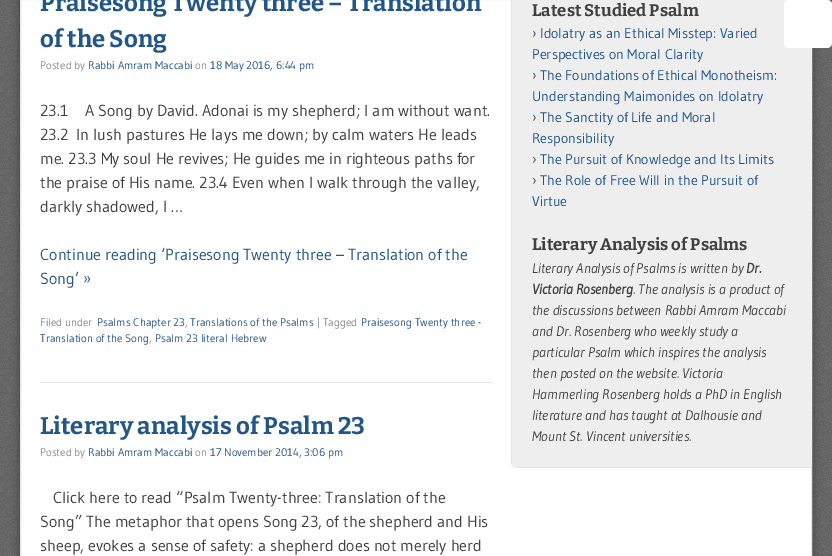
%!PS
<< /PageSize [832 556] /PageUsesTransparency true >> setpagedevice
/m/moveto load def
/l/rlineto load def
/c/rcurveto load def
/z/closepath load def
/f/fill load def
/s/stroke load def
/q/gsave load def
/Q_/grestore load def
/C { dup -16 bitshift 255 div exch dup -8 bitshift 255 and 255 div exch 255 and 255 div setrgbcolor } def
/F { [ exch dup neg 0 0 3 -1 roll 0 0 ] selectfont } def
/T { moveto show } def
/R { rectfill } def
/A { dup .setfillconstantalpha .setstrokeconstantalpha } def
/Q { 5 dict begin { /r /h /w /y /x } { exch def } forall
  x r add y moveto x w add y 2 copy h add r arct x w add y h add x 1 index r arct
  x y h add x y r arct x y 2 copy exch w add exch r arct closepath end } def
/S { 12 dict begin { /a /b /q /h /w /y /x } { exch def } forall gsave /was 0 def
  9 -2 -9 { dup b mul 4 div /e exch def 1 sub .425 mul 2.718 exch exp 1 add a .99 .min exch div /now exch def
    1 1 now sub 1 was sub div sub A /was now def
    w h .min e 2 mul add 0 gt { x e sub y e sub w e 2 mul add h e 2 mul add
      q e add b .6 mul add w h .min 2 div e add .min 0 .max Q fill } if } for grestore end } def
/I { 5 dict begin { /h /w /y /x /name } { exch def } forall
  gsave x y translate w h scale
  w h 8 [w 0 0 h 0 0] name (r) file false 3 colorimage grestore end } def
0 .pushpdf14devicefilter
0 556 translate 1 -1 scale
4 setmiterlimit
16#666666 C
0 0 832 556 R
(1.rgb) 0 0 832 556 I
16#000000 C
20 -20 792 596 5 5 .4 S
16#FFFFFF C
20.5 -.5 m 791 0 l 0 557 l -791 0 l z q f Q_
16#E6E6E6 C
s
16#E4E4E4 C
40 382 452 1 R
/Bitter-Bold 24 F
16#225588 C
(Praisesong Twenty three – Translation) 40 11 T
(of the Song) 40 47 T
/Gudea-Regular 11 F
16#888888 C
(Posted by) 40 69 T
16#225588 C
(Rabbi Amram Maccabi) 88 69 T
16#888888 C
(on) 195 69 T
16#225588 C
(18 May 2016, 6:44 pm) 210 69 T
/Gudea-Regular 16 F
16#404040 C
(23.1) 40 116 T
(A Song by David. Adonai is my shepherd; I am without want.) 85 116 T
(23.2  In lush pastures He lays me down; by calm waters He leads) 40 140 T
(me. 23.3 My soul He revives; He guides me in righteous paths for) 40 164 T
(the praise of His name. 23.4 Even when I walk through the valley,) 40 188 T
(darkly shadowed, I …) 40 212 T
16#225588 C
(Continue reading ‘Praisesong Twenty three – Translation of the) 40 260 T
(Song’ ») 40 284 T
/Gudea-Regular 11 F
16#888888 C
(Filed under) 40 326 T
16#225588 C
(Psalms Chapter 23) 97 326 T
16#888888 C
(,) 185 326 T
16#225588 C
(Translations of the Psalms) 190 326 T
16#888888 C
(| Tagged) 317 326 T
16#225588 C
(Praisesong Twenty three -) 361 326 T
(Translation of the Song) 40 342 T
16#888888 C
(,) 149 342 T
16#225588 C
(Psalm 23 literal Hebrew) 155 342 T
/Bitter-Bold 24 F
(Literary analysis of Psalm 23) 40 434 T
/Gudea-Regular 11 F
16#888888 C
(Posted by) 40 456 T
16#225588 C
(Rabbi Amram Maccabi) 88 456 T
16#888888 C
(on) 195 456 T
16#225588 C
(17 November 2014, 3:06 pm) 210 456 T
/Gudea-Regular 16 F
16#404040 C
(Click here to read “Psalm Twenty-three: Translation of the) 53 503 T
(Song” The metaphor that opens Song 23, of the shepherd and His) 40 527 T
(sheep, evokes a sense of safety: a shepherd does not merely herd) 40 551 T
0.1 A
16#000000 C
511 -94 m 0 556 l 0 3 3 6 6 6 c 295 0 l 0 -1 l -295 0 l -3 0 -5 -2 -5 -5 c 0 -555 l 300 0 l 0 -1 l z f
1 A
16#EEEEEE C
512 -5 m 300 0 l 0 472 l -295 0 l -3 0 -5 -2 -5 -5 c z f
/Bitter-Bold 16.75 F
16#404040 C
(Latest Studied Psalm) 532 16 T
/Gudea-Regular 14 F
(›) 532 38 T
16#225588 C
(Idolatry as an Ethical Misstep: Varied) 540 38 T
(Perspectives on Moral Clarity) 532 59 T
16#404040 C
(›) 532 80 T
16#225588 C
(The Foundations of Ethical Monotheism:) 540 80 T
(Understanding Maimonides on Idolatry) 532 101 T
16#404040 C
(›) 532 122 T
16#225588 C
(The Sanctity of Life and Moral) 540 122 T
(Responsibility) 532 143 T
16#404040 C
(›) 532 164 T
16#225588 C
(The Pursuit of Knowledge and Its Limits) 540 164 T
16#404040 C
(›) 532 185 T
16#225588 C
(The Role of Free Will in the Pursuit of) 540 185 T
(Virtue) 532 206 T
/Bitter-Bold 16.75 F
16#404040 C
(Literary Analysis of Psalms) 532 250 T
/Gudea-Italic 14 F
(Literary Analysis of Psalms is written by) 532 273 T
/Gudea-BoldItalic 14 F
(Dr.) 746 273 T
(Victoria Rosenberg) 532 294 T
/Gudea-Italic 14 F
(. The analysis is a product of) 633 294 T
(the discussions between Rabbi Amram Maccabi) 532 315 T
(and Dr. Rosenberg who weekly study a) 532 336 T
(particular Psalm which inspires the analysis) 532 357 T
(then posted on the website. Victoria) 532 378 T
(Hammerling Rosenberg holds a PhD in English) 532 399 T
(literature and has taught at Dalhousie and) 532 420 T
(Mount St. Vincent universities.) 532 441 T
16#FFFFFF C
784 0 48 48 5 Q f
0.5 A
789 1 m 38 0 l 3 0 5 2 5 5 c 0 -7 -6 -6 -11 -6 c -26 0 l -5 0 -11 -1 -11 6 c 0 -3 2 -5 5 -5 c z f
.poppdf14devicefilter showpage
